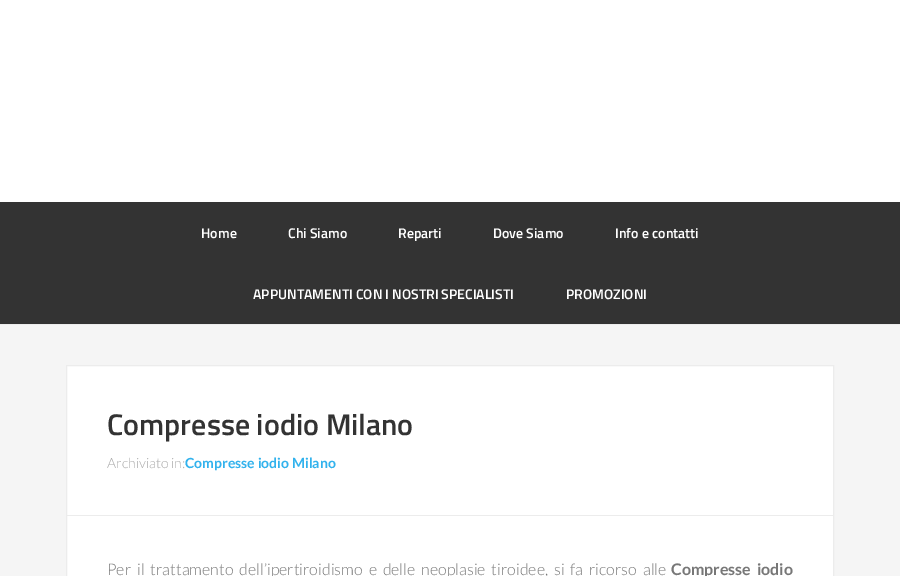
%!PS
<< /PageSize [900 576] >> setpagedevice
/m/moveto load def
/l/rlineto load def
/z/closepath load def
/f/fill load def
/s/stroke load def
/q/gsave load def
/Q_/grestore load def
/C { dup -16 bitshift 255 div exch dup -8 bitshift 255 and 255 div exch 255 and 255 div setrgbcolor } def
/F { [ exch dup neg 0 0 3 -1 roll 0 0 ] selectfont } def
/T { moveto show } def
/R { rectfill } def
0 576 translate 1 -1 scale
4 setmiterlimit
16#FFFFFF C
0 0 900 576 R
16#333333 C
0 202 900 122 R
/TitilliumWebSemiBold-SemiBold 14 F
16#FFFFFF C
(Home) 201 238 T
(Chi Siamo) 288 238 T
(Reparti) 398 238 T
(Dove Siamo) 493 238 T
(Info e contatti) 615 238 T
(APPUNTAMENTI CON I NOSTRI SPECIALISTI) 253 299 T
(PROMOZIONI) 566 299 T
16#F5F5F5 C
0 325 900 251 R
16#ECECEC C
0 324 900 1 R
16#FFFFFF C
66.5 365.5 m 767 0 l 0 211 l -767 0 l z q f Q_
16#ECECEC C
s
67 515 766 1 R
/TitilliumWebSemiBold-SemiBold 30 F
16#333333 C
(Compresse iodio Milano) 107 435 T
/Lato-Light 14 F
16#AAAAAA C
(Archiviato in:) 107 468 T
/Lato-Bold 14 F
16#31B2ED C
(Compresse iodio Milano) 185 468 T
/Lato-Light 16 F
16#777777 C
107 575 m 2.75 0 32 (Per il trattamento dell’ipertiroidismo e delle neoplasie tiroidee, si fa ricorso alle) widthshow
/Lato-Bold 16 F
671 575 m 2.75 0 32 (Compresse iodio) widthshow
showpage
